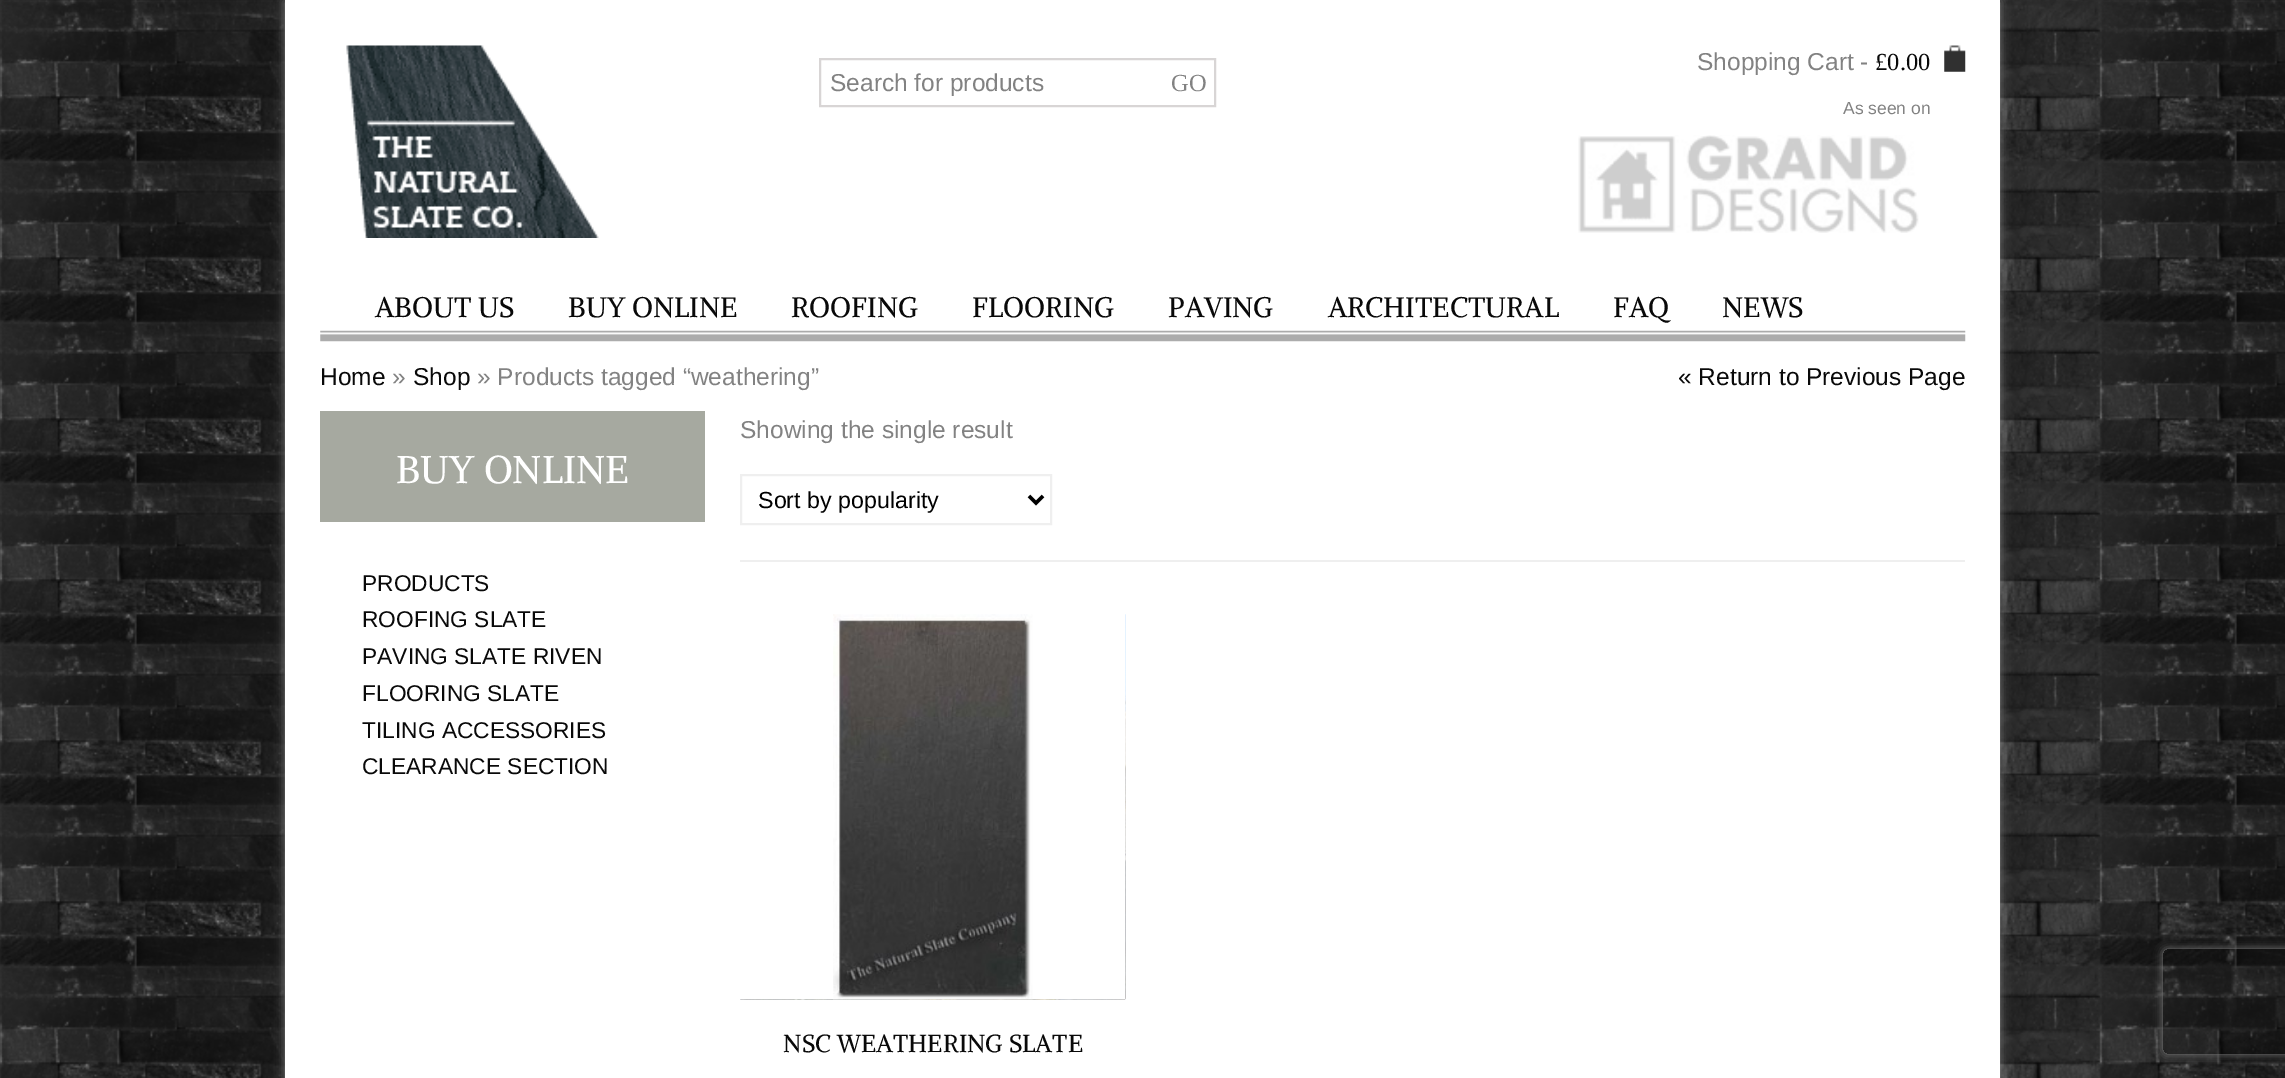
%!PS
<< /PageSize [2285 1078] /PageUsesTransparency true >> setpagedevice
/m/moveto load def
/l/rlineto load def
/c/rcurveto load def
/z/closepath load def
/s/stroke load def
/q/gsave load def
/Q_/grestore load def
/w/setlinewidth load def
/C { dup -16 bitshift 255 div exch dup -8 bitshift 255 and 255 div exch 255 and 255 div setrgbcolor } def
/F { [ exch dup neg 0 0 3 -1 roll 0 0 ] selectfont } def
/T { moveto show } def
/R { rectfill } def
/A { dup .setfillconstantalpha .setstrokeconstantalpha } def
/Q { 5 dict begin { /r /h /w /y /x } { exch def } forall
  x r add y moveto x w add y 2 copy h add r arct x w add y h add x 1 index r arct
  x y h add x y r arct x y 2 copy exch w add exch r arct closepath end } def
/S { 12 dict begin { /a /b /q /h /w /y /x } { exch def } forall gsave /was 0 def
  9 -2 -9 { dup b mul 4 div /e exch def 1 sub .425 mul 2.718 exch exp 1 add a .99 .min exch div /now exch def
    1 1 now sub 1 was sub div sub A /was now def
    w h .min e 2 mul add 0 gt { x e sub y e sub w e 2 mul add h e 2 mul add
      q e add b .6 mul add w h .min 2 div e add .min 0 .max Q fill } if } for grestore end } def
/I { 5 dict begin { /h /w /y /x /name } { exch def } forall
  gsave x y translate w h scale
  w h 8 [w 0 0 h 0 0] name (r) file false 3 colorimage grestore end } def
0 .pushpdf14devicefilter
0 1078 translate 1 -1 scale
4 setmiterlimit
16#FFFFFF C
0 0 2285 1078 R
(1.rgb) 0 0 2285 1078 I
16#818181 C
285 2 1715 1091 0 5 1 S
16#FFFFFF C
285 0 1715 1078 R
(2.rgb) 346 45 253 193 I
16#D8D5D5 C
2 w
820 59 395 47 rectstroke
/LiberationSans-Regular 24.5 F
16#828282 C
(Search for products) 830 91 T
/LiberationSerif-Regular 24.5 F
(GO) 1171 91 T
(3.rgb) 1944 45 22 27 I
/LiberationSans-Regular 24.5 F
(Shopping Cart -) 1697 70 T
/LiberationSerif-Regular 24.5 F
16#090909 C
(£0.00) 1875 70 T
/LiberationSans-Regular 17.5 F
16#828282 C
(As seen on) 1843 114 T
(4.rgb) 1578 135 341 98 I
(5.rgb) 320 330 1646 12 I
/Alike-Regular 28 F
16#090909 C
(ABOUT US) 375 317 T
(BUY ONLINE) 568 317 T
(ROOFING) 791 317 T
(FLOORING) 972 317 T
(PAVING) 1168 317 T
(ARCHITECTURAL) 1328 317 T
(FAQ) 1613 317 T
(NEWS) 1722 317 T
/LiberationSans-Regular 24.5 F
(Home) 320 385 T
16#828282 C
(») 392 385 T
16#090909 C
(Shop) 413 385 T
16#828282 C
(» Products tagged “weathering”) 477 385 T
16#090909 C
(« Return to Previous Page) 1678 385 T
16#A6A9A0 C
320 411 385 111 R
/Alike-Regular 38.5 F
16#FFFFFF C
(BUY ONLINE) 396 483 T
/LiberationSans-Regular 22.75 F
16#090909 C
(PRODUCTS) 362 591 T
(ROOFING SLATE) 362 627 T
(PAVING SLATE RIVEN) 362 664 T
(FLOORING SLATE) 362 701 T
(TILING ACCESSORIES) 362 738 T
(CLEARANCE SECTION) 362 774 T
16#EFEFEF C
740 560 1225 2 R
/LiberationSans-Regular 24.5 F
16#828282 C
(Showing the single result) 740 438 T
16#EFEFEF C
741 475 310 49 rectstroke
16#000000 C
3.5 w
1029 496 m 7 7 l 7 -7 l s
/LiberationSans-Regular 23.25 F
(Sort by popularity) 758 508 T
(6.rgb) 740 614 386 386 I
16#FFFFFF C
740 614 385 385 R
(7.rgb) 833 614 200 386 I
/Alike-Regular 24.5 F
16#090909 C
(NSC WEATHERING SLATE) 783 1052 T
q
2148 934 m 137 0 l 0 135 l -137 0 l z 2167 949 m 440 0 l 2 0 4 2 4 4 c 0 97 l 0 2 -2 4 -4 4 c -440 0 l -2 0 -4 -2 -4 -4 c 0 -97 l 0 -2 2 -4 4 -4 c z eoclip newpath
16#808080 C
2163 949 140 105 4 4.5 1 S
Q_
.poppdf14devicefilter showpage
